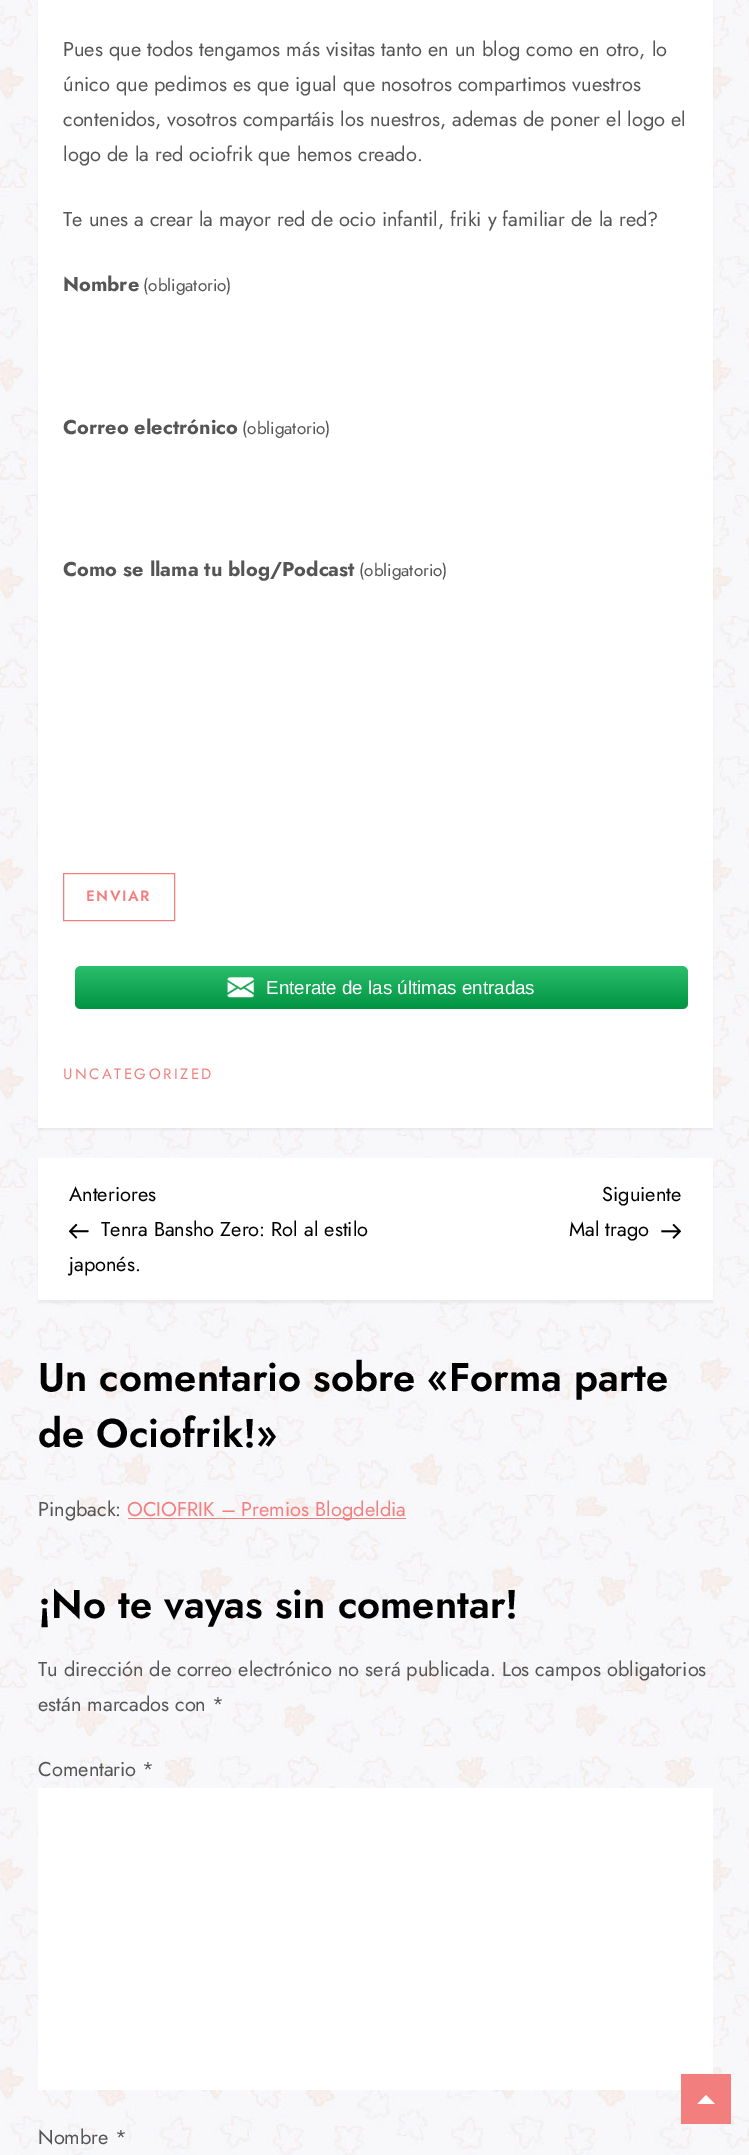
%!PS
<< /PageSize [749 2155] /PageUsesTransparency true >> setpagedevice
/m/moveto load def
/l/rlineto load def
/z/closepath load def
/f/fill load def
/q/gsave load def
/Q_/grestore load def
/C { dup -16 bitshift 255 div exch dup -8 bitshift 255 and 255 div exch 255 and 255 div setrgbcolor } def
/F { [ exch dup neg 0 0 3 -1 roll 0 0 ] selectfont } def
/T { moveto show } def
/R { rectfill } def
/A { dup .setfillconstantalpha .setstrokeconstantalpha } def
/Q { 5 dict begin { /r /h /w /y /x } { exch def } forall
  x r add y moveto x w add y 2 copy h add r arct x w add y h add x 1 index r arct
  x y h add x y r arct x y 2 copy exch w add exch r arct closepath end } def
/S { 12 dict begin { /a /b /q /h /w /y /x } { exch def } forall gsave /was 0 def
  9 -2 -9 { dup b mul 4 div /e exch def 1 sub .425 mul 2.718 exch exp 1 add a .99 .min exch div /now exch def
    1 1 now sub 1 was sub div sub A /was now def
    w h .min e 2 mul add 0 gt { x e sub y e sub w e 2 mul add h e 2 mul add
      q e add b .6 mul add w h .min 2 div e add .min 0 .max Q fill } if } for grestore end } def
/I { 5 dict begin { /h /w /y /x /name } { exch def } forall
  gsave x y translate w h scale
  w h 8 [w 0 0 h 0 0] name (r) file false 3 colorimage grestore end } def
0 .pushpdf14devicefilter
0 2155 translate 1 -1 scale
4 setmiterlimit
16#FFFFFF C
0 0 749 2155 R
(1.rgb) 0 0 749 2155 I
16#000000 C
38 -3 675 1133 0 1 .06 S
16#FFFFFF C
38 0 675 1128 R
/Jost-Regular 20 F
16#555555 C
(Pues que todos tengamos más visitas tanto en un blog como en otro, lo) 63 56 T
(único que pedimos es que igual que nosotros compartimos vuestros) 63 91 T
(contenidos, vosotros compartáis los nuestros, ademas de poner el logo el) 63 126 T
(logo de la red ociofrik que hemos creado.) 63 161 T
(Te unes a crear la mayor red de ocio infantil, friki y familiar de la red?) 63 226 T
/Jost-Bold 20 F
(Nombre) 63 291 T
/Jost-Regular 17 F
(\(obligatorio\)) 143 291 T
/Jost-Bold 20 F
(Correo electrónico) 63 434 T
/Jost-Regular 17 F
(\(obligatorio\)) 242 434 T
/Jost-Bold 20 F
(Como se llama tu blog/Podcast) 63 576 T
/Jost-Regular 17 F
(\(obligatorio\)) 359 576 T
16#F37E7E C
63.5 873.5 111 47 rectstroke
/Jost-SemiBold 15 F
86 901 m 1.5 0 (ENVIAR) ashow
16#00B04E C
75 966 613 43 6 Q f
0.17 A
q 75 966 613 43 6 Q clip newpath
<< /ShadingType 2 /ColorSpace /DeviceRGB /Coords [381 1009 381 966] /Extend [true true] /Function << /FunctionType 2 /Domain [0 1] /C0 [0 0 0] /C1 [1 1 1] /N 1 >> >> shfill Q_
1 A
(2.rgb) 227 977 27 21 I
/LiberationSans-Regular 18.75 F
16#FFFFFF C
(Enterate de las últimas entradas) 266 994 T
/Jost-Regular 15 F
16#F37E7E C
63 1079 m 2.5 0 (UNCATEGORIZED) ashow
16#000000 C
38 1160 675 143 0 1 .06 S
16#FFFFFF C
38 1158 675 142 R
/Jost-Regular 20 F
16#000000 C
(Anteriores) 69 1201 T
(3.rgb) 69 1223 20 16 I
(Tenra Bansho Zero: Rol al estilo) 101 1236 T
(japonés.) 69 1271 T
(Siguiente) 602 1201 T
(Mal trago) 569 1236 T
(4.rgb) 661 1223 20 16 I
/Jost-SemiBold 40 F
(Un comentario sobre «Forma parte) 38 1391 T
(de Ociofrik!») 38 1447 T
/Jost-Regular 20 F
16#555555 C
(Pingback:) 38 1516 T
16#F37E7E C
128 1518 278 1 R
(OCIOFRIK – Premios Blogdeldia) 127 1516 T
/Jost-SemiBold 40 F
16#000000 C
(¡No te vayas sin comentar!) 38 1618 T
/Jost-Regular 20 F
16#555555 C
(Tu dirección de correo electrónico no será publicada. Los campos obligatorios) 38 1676 T
(están marcados con *) 38 1711 T
(Comentario *) 38 1776 T
16#FFFFFF C
38 1788 675 302 R
16#555555 C
(Nombre *) 38 2144 T
16#F37E7E C
681 2074 50 50 R
16#FFFFFF C
715 2104 m -17.5 0 l 8.5 -9 l z f
.poppdf14devicefilter showpage
